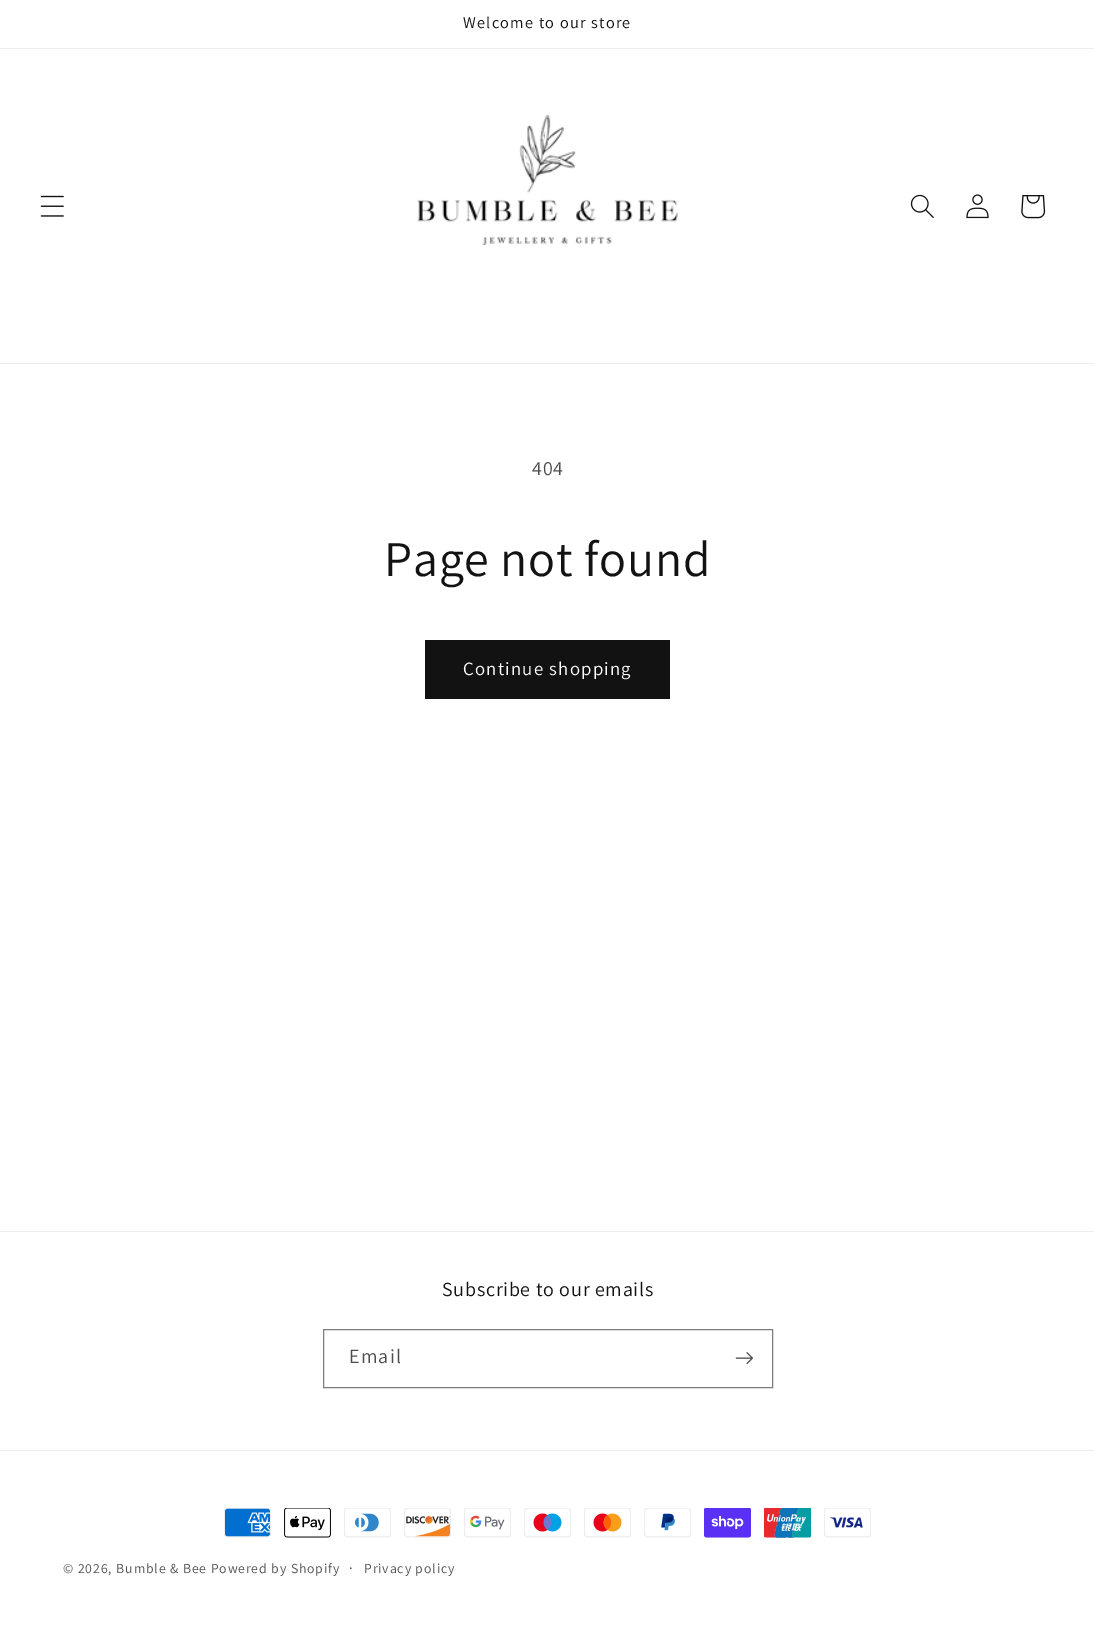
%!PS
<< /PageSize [1094 1626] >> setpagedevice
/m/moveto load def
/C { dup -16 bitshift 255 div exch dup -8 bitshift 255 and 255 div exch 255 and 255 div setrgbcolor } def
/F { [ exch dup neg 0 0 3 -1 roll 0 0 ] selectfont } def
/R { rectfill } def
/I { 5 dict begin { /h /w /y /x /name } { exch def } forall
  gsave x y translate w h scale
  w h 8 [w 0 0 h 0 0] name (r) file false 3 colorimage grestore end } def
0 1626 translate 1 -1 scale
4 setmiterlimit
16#FFFFFF C
0 0 1094 1626 R
16#ECECEC C
0 48 1094 1 R
/Assistant-Regular 16.25 F
16#121212 C
463 28 m 1.25 0 (Welcome to our store) ashow
16#ECECEC C
0 363 1094 1 R
(1.rgb) 40 195 24 22 I
(2.rgb) 417 114 262 132 I
(3.rgb) 910 194 24 24 I
(4.rgb) 966 194 23 25 I
(5.rgb) 1021 195 25 24 I
/Assistant-Regular 20 F
16#4D4D4D C
532 475 m .75 0 (404) ashow
/Assistant-Regular 50 F
16#121212 C
384 576 m .75 0 (Page not found) ashow
425 640 245 59 R
/Assistant-Regular 18.75 F
16#FFFFFF C
463 675 m 1.25 0 (Continue shopping) ashow
16#ECECEC C
0 1231 1094 1 R
/Assistant-Regular 20 F
16#121212 C
442 1296 m .75 0 (Subscribe to our emails) ashow
16#7D7D7D C
323.5 1329.5 449 58 rectstroke
16#4D4D4D C
349 1363 m 1.25 0 (Email) ashow
(6.rgb) 735 1352 18 13 I
16#ECECEC C
0 1450 1094 1 R
(7.rgb) 224 1508 47 30 I
(8.rgb) 284 1508 47 30 I
(9.rgb) 344 1508 47 30 I
(10.rgb) 404 1508 47 30 I
(11.rgb) 464 1508 47 30 I
(12.rgb) 524 1508 47 30 I
(13.rgb) 584 1508 47 30 I
(14.rgb) 644 1508 47 30 I
(15.rgb) 704 1508 47 30 I
(16.rgb) 764 1508 47 30 I
(17.rgb) 824 1508 47 30 I
/Assistant-Regular 13.75 F
16#4D4D4D C
63 1573 m .9 0 (© 2026, Bumble & Bee Powered by Shopify) ashow
/Assistant-Regular 15 F
349 1573 m .9 0 (·) ashow
/Assistant-Regular 13.75 F
364 1573 m .9 0 (Privacy policy) ashow
showpage
